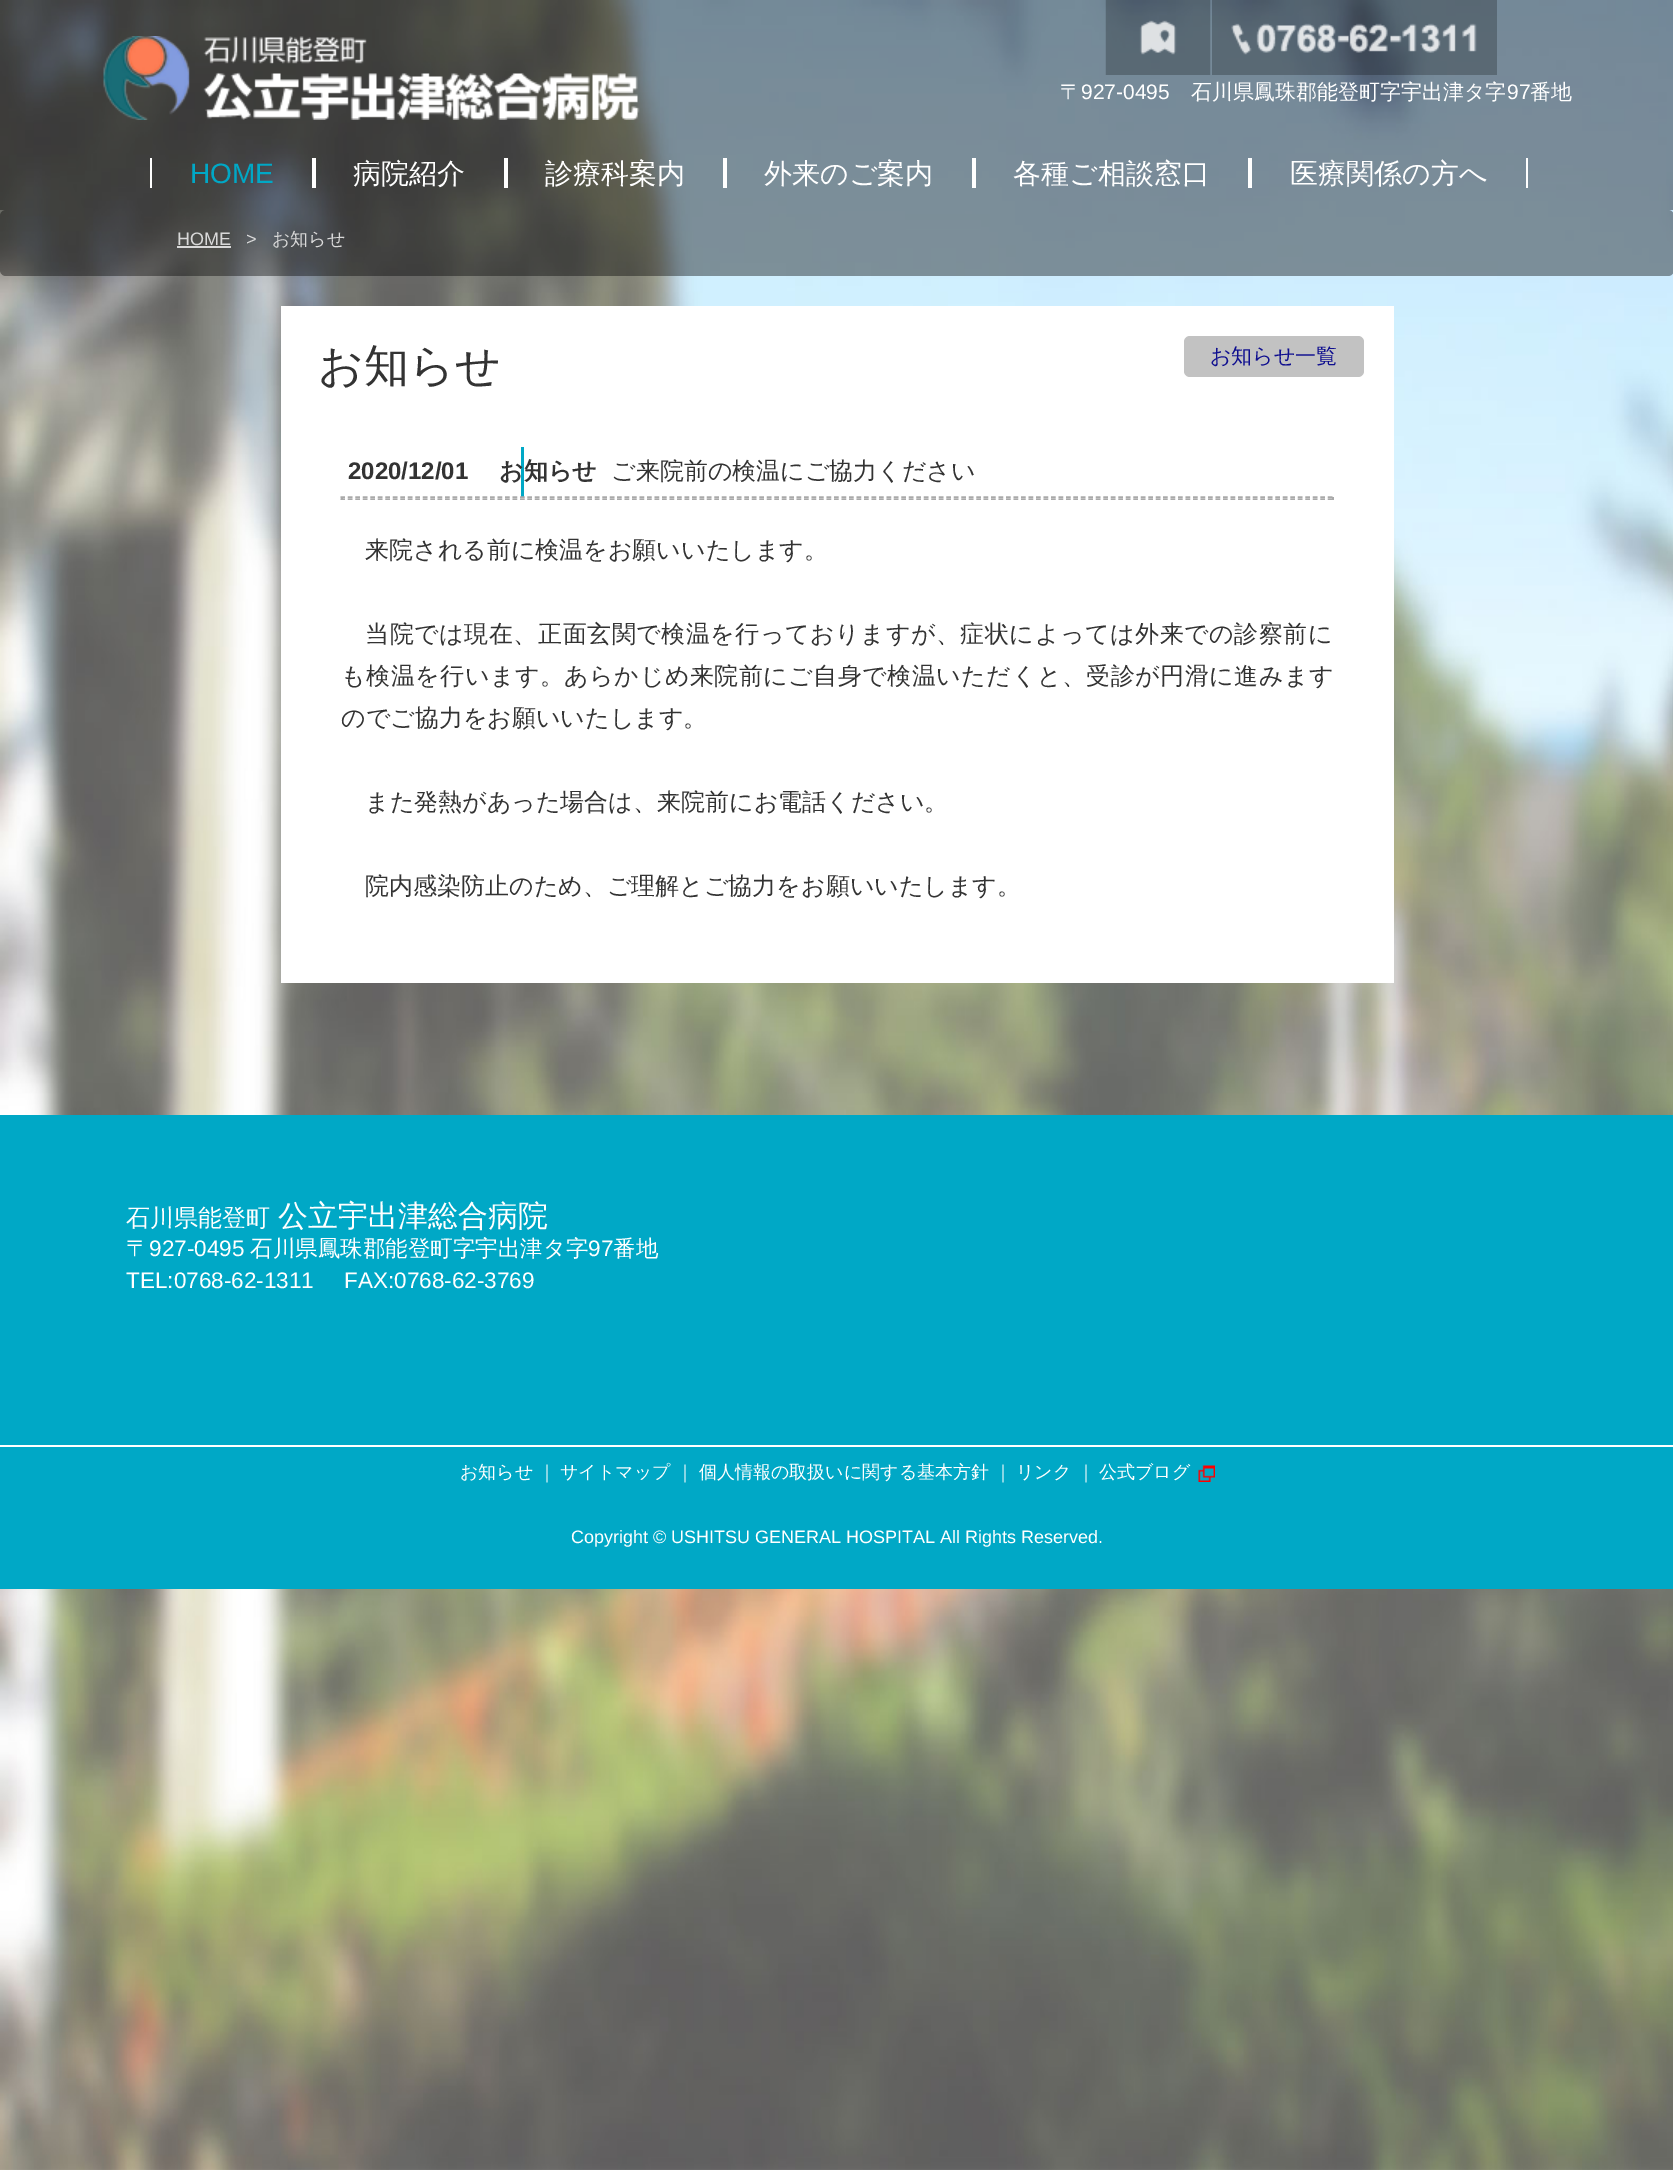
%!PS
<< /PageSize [1673 2170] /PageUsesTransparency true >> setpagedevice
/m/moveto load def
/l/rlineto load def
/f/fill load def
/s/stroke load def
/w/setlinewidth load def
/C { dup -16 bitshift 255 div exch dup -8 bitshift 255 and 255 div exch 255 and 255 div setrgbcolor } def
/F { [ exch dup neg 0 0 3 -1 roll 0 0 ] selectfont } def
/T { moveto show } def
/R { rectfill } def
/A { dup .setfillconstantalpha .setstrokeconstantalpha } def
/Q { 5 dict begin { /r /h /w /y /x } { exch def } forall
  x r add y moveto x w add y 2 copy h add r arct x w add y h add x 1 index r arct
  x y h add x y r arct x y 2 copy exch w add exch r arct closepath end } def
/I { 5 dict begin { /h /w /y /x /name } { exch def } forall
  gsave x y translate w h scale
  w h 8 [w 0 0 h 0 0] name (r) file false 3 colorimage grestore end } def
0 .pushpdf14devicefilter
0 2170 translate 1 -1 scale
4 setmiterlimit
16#FFFFFF C
0 0 1673 2170 R
(1.rgb) 0 0 1673 2170 I
0.4 A
16#000000 C
0 0 1673 210 R
1 A
(2.rgb) 103 36 537 84 I
(3.rgb) 1105 0 106 75 I
(4.rgb) 1212 0 285 75 I
/WenQuanYiZenHei-Medium 21 F
16#FFFFFF C
(〒) 1060 99 T
/LiberationSans-Regular 21 F
(927-0495) 1081 99 T
/WenQuanYiZenHei-Medium 21 F
(石川県鳳珠郡能登町字宇出津タ字) 1191 99 T
/LiberationSans-Regular 21 F
(97) 1507 99 T
/WenQuanYiZenHei-Medium 21 F
(番地) 1530 99 T
312 158 4 30 R
150 158 2 30 R
/LiberationSans-Regular 28 F
16#00A8C6 C
(HOME) 190 183 T
16#FFFFFF C
504 158 4 30 R
/WenQuanYiZenHei-Medium 28 F
(病院紹介) 353 183 T
723 158 4 30 R
(診療科案内) 545 183 T
972 158 4 30 R
(外来のご案内) 764 183 T
1248 158 4 30 R
(各種ご相談窓口) 1013 183 T
1526 158 2 30 R
(医療関係の方へ) 1290 183 T
0.4 A
16#000000 C
0 210 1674 66 6 Q f
/LiberationSans-Regular 18 F
1 A
16#D9D9D9 C
(HOME) 177 245 T
177 246 54 2 R
(>) 246 245 T
/WenQuanYiZenHei-Medium 18 F
(お知らせ) 272 245 T
16#FFFFFF C
281 306 1113 677 R
/WenQuanYiZenHei-Medium 45 F
16#333333 C
(お知らせ) 318 381 T
16#C2C2C2 C
1184 336 180 41 6 Q f
/WenQuanYiZenHei-Medium 21 F
16#0F0F8F C
(お知らせ一覧) 1210 363 T
/LiberationSans-Bold 24 F
16#333333 C
(2020/12/01) 348 479 T
16#00A8C6 C
521 447 3 50 R
/WenQuanYiZenHei-Bold 24 F
16#333333 C
(お知らせ) 499 479 T
/WenQuanYiZenHei-Medium 24 F
(ご来院前の検温にご協力ください) 611 479 T
16#A9A9A9 C
1.5 w
[4.5 2.98] 0 setdash
340.5 497 m 993 0 l s
1332 497 2 3 R
340.5 499 m 993 0 l s
341 497 2 3 R
16#333333 C
(来院される前に検温をお願いいたします。) 365 558 T
365 642 m .55 0 (当院では現在、正面玄関で検温を行っておりますが、症状によっては外来での診察前に) ashow
341 684 m .5 0 (も検温を行います。あらかじめ来院前にご自身で検温いただくと、受診が円滑に進みます) ashow
(のでご協力をお願いいたします。) 341 726 T
(また発熱があった場合は、来院前にお電話ください。) 365 810 T
(院内感染防止のため、ご理解とご協力をお願いいたします。) 365 894 T
16#00A8C6 C
0 1115 1673 474 R
16#FFFFFF C
(石川県能登町) 126 1226 T
/WenQuanYiZenHei-Medium 30 F
(公立宇出津総合病院) 278 1226 T
/WenQuanYiZenHei-Medium 22.5 F
(〒) 126 1256 T
/LiberationSans-Regular 22.5 F
(927-0495) 149 1256 T
/WenQuanYiZenHei-Medium 22.5 F
(石川県鳳珠郡能登町字宇出津タ字) 250 1256 T
/LiberationSans-Regular 22.5 F
(97) 588 1256 T
/WenQuanYiZenHei-Medium 22.5 F
(番地) 613 1256 T
/LiberationSans-Regular 22.5 F
(TEL:0768-62-1311) 126 1288 T
(FAX:0768-62-3769) 344 1288 T
0 1445 1673 2 R
/WenQuanYiZenHei-Medium 18 F
(お知らせ) 460 1478 T
(｜) 538 1478 T
(サイトマップ) 560 1478 T
(｜) 676 1478 T
(個人情報の取扱いに関する基本方針) 699 1478 T
(｜) 994 1478 T
(リンク) 1016 1478 T
(｜) 1077 1478 T
(公式ブログ) 1099 1478 T
(5.rgb) 1198 1465 17 17 I
/LiberationSans-Regular 18 F
(Copyright © USHITSU GENERAL HOSPITAL All Rights Reserved.) 571 1543 T
.poppdf14devicefilter showpage
